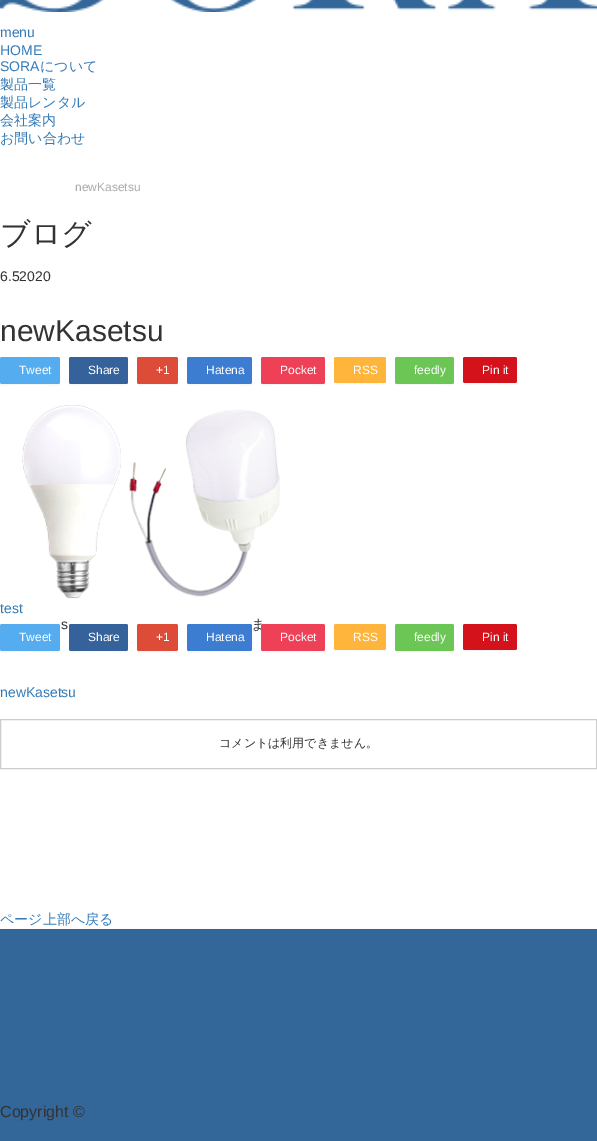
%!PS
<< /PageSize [597 1141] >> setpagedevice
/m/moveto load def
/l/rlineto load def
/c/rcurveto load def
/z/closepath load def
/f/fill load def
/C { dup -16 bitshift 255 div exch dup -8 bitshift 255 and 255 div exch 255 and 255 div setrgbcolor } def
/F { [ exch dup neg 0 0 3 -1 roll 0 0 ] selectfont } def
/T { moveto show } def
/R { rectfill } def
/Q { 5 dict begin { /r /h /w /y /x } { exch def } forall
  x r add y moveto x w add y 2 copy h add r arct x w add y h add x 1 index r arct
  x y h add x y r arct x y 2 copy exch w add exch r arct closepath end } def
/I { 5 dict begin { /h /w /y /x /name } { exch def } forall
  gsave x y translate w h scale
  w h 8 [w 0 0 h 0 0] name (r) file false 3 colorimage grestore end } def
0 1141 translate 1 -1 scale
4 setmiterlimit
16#FFFFFF C
0 0 597 1141 R
(1.rgb) 0 0 597 12 I
/LiberationSans-Regular 14 F
16#337AB7 C
(menu) 0 37 T
(HOME) 0 55 T
(SORA) 0 71 T
/WenQuanYiZenHei-Medium 14 F
(について) 40 71 T
(製品一覧) 0 89 T
(製品レンタル) 0 107 T
(会社案内) 0 125 T
(お問い合わせ) 0 143 T
/LiberationSans-Regular 12 F
16#AAAAAA C
(newKasetsu) 75 191 T
/WenQuanYiZenHei-Medium 30 F
16#333333 C
(ブログ) 0 244 T
/LiberationSans-Regular 14 F
(6.52020) 0 281 T
/LiberationSans-Regular 30 F
(newKasetsu) 0 341 T
16#F7F7F7 C
0 382 m 0 6 8 3 11 3 c 38 0 l 3 0 11 3 11 -3 c -1 2 l -58 0 l z f
16#55ACEE C
0 357 60 27 2 Q f
/LiberationSans-Regular 12 F
16#FFFFFF C
(Tweet) 19 374 T
16#F7F7F7 C
69 382 m 0 5 7 3 11 3 c 37 0 l 4 0 11 2 11 -3 c -1 2 l -57 0 l z f
16#35629A C
69 357 59 27 2 Q f
16#FFFFFF C
(Share) 88 374 T
16#F7F7F7 C
137 382 m 0 5 4 3 8 3 c 25 0 l 4 0 8 2 8 -3 c 0 1 -1 2 -2 2 c -37 0 l -1 0 -2 -1 -2 -2 c z f
16#DD4B39 C
137 357 41 27 2 Q f
16#FFFFFF C
(+1) 156 374 T
16#F7F7F7 C
187 382 m 0 6 8 3 12 3 c 41 0 l 4 0 12 3 12 -3 c -1 2 l -52 0 l -4 0 -12 2 -12 -2 c z f
16#3C7DD1 C
187 357 65 27 2 Q f
16#FFFFFF C
(Hatena) 206 374 T
16#F7F7F7 C
261 382 m 0 6 8 3 12 3 c 40 0 l 4 0 12 3 12 -3 c -1 2 l -51 0 l -4 0 -12 2 -12 -2 c z f
16#EE4056 C
261 357 64 27 2 Q f
16#FFFFFF C
(Pocket) 280 374 T
16#F7F7F7 C
334 381 m 0 5 6 3 10 3 c 32 0 l 4 0 10 2 10 -3 c 0 1 -1 2 -2 2 c -48 0 l -1 0 -2 -1 -2 -2 c z f
16#FFB53C C
334 357 52 26 2 Q f
16#FFFFFF C
(RSS) 353 374 T
16#F7F7F7 C
395 382 m 0 5 7 3 11 3 c 37 0 l 4 0 11 2 11 -3 c -1 2 l -57 0 l z f
16#6CC655 C
395 357 59 27 2 Q f
16#FFFFFF C
(feedly) 414 374 T
16#F7F7F7 C
463 381 m 0 5 6 3 10 3 c 34 0 l 4 0 10 2 10 -3 c -1 2 l -52 0 l z f
16#D4121C C
463 357 54 26 2 Q f
16#FFFFFF C
(Pin it) 482 374 T
(2.rgb) 22 405 258 194 I
/LiberationSans-Regular 14 F
16#337AB7 C
(test) 0 613 T
16#333333 C
(s) 61 629 T
/WenQuanYiZenHei-Medium 14 F
(ま) 251 629 T
16#F7F7F7 C
0 649 m 0 6 8 3 11 3 c 38 0 l 3 0 11 3 11 -3 c -1 2 l -58 0 l z f
16#55ACEE C
0 624 60 27 2 Q f
/LiberationSans-Regular 12 F
16#FFFFFF C
(Tweet) 19 641 T
16#F7F7F7 C
69 649 m 0 5 7 3 11 3 c 37 0 l 4 0 11 2 11 -3 c -1 2 l -57 0 l z f
16#35629A C
69 624 59 27 2 Q f
16#FFFFFF C
(Share) 88 641 T
16#F7F7F7 C
137 649 m 0 5 4 3 8 3 c 25 0 l 4 0 8 2 8 -3 c 0 1 -1 2 -2 2 c -37 0 l -1 0 -2 -1 -2 -2 c z f
16#DD4B39 C
137 624 41 27 2 Q f
16#FFFFFF C
(+1) 156 641 T
16#F7F7F7 C
187 649 m 0 6 8 3 12 3 c 41 0 l 4 0 12 3 12 -3 c -1 2 l -52 0 l -4 0 -12 2 -12 -2 c z f
16#3C7DD1 C
187 624 65 27 2 Q f
16#FFFFFF C
(Hatena) 206 641 T
16#F7F7F7 C
261 649 m 0 6 8 3 12 3 c 40 0 l 4 0 12 3 12 -3 c -1 2 l -51 0 l -4 0 -12 2 -12 -2 c z f
16#EE4056 C
261 624 64 27 2 Q f
16#FFFFFF C
(Pocket) 280 641 T
16#F7F7F7 C
334 648 m 0 5 6 3 10 3 c 32 0 l 4 0 10 2 10 -3 c 0 1 -1 2 -2 2 c -48 0 l -1 0 -2 -1 -2 -2 c z f
16#FFB53C C
334 624 52 26 2 Q f
16#FFFFFF C
(RSS) 353 641 T
16#F7F7F7 C
395 649 m 0 5 7 3 11 3 c 37 0 l 4 0 11 2 11 -3 c -1 2 l -57 0 l z f
16#6CC655 C
395 624 59 27 2 Q f
16#FFFFFF C
(feedly) 414 641 T
16#F7F7F7 C
463 648 m 0 5 6 3 10 3 c 34 0 l 4 0 10 2 10 -3 c -1 2 l -52 0 l z f
16#D4121C C
463 624 54 26 2 Q f
16#FFFFFF C
(Pin it) 482 641 T
/LiberationSans-Regular 14 F
16#337AB7 C
(newKasetsu) 0 697 T
16#CCCCCC C
.5 719.5 596 49 rectstroke
/WenQuanYiZenHei-Medium 12 F
16#333333 C
(コメントは利用できません。) 219 747 T
/WenQuanYiZenHei-Medium 14 F
16#337AB7 C
(ページ上部へ戻る) 0 924 T
16#336699 C
0 929 597 212 R
/LiberationSans-Regular 16 F
16#333333 C
(Copyright ©) 0 1117 T
showpage
